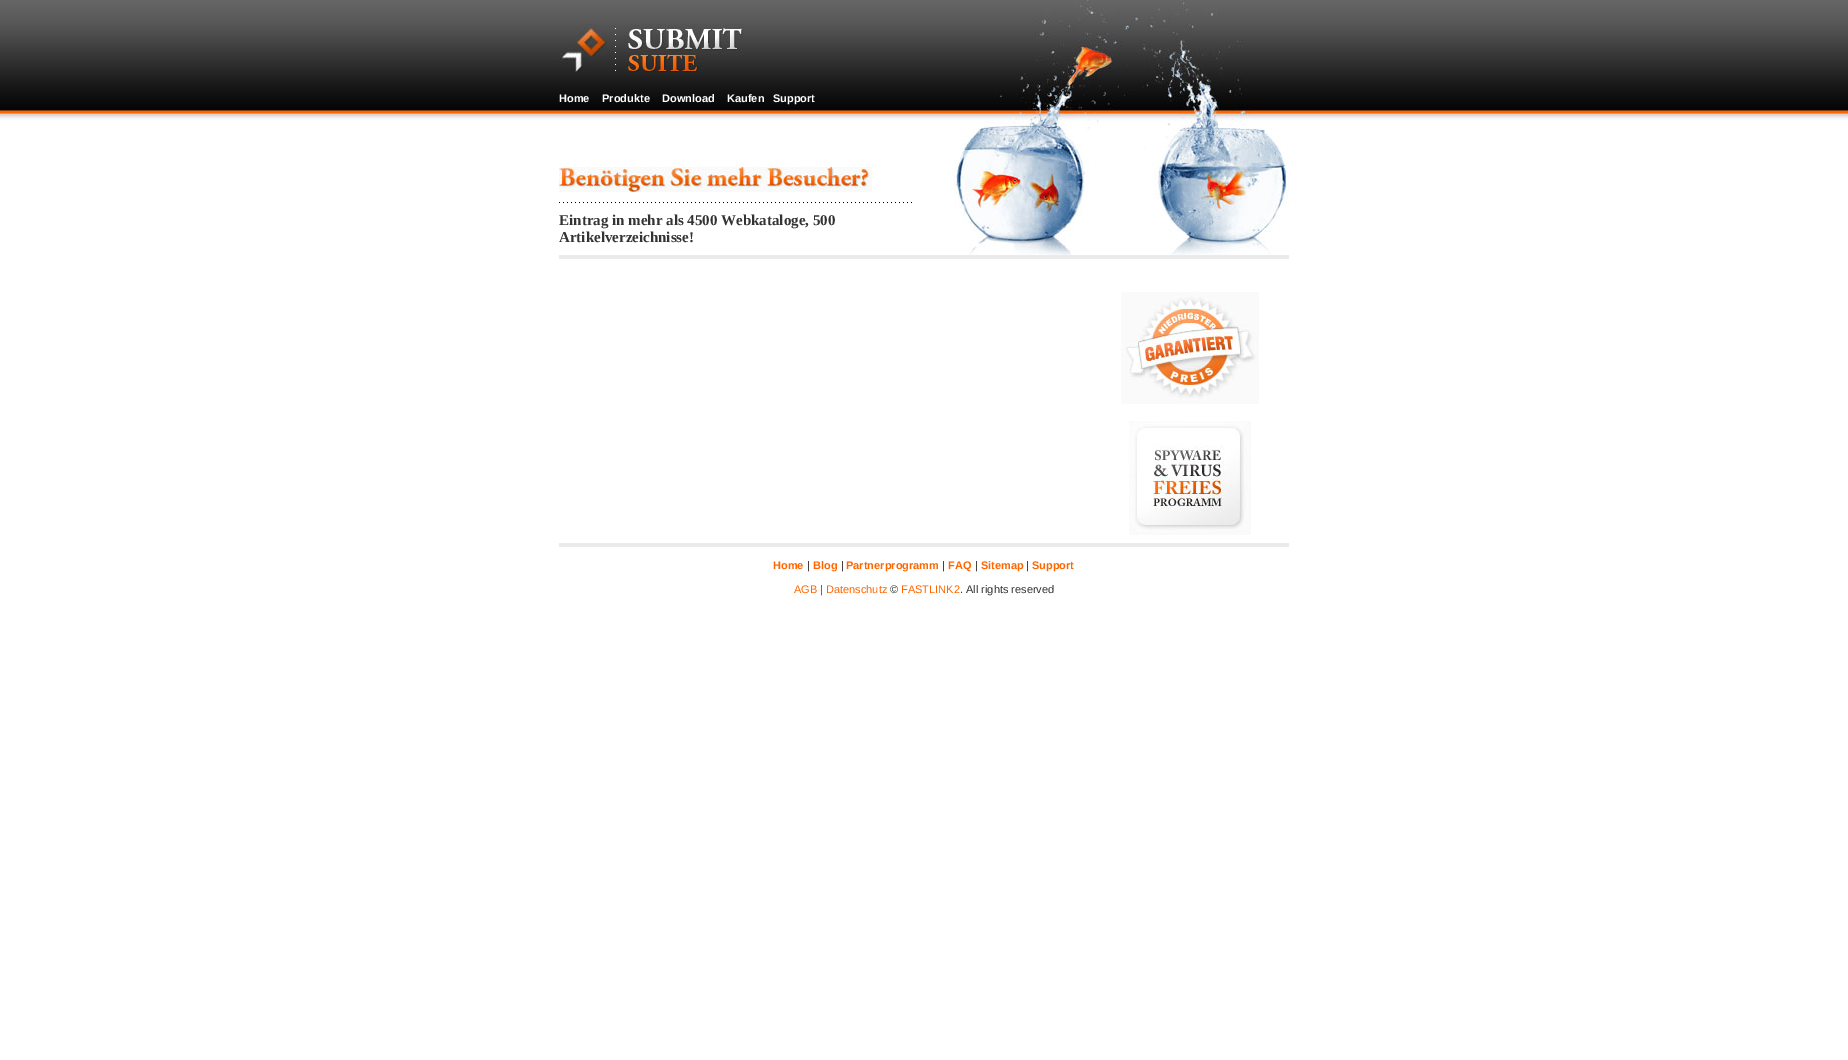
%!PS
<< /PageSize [1848 1060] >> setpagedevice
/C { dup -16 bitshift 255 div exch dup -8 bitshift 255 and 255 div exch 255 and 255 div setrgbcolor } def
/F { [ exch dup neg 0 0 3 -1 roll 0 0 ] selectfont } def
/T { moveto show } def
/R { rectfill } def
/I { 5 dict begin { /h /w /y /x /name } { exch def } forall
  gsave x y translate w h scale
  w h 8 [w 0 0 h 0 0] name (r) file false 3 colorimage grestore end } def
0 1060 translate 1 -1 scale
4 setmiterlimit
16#FFFFFF C
0 0 1848 1060 R
(1.rgb) 0 0 1848 120 I
(2.rgb) 559 24 57 48 I
(3.rgb) 624 24 120 48 I
(4.rgb) 983 0 268 128 I
/LiberationSans-Bold 11 F
(Home) 559 102 T
(Produkte) 602 102 T
(Download) 662 102 T
(Kaufen) 727 102 T
(Support) 773 102 T
(5.rgb) 559 167 313 25 I
(6.rgb) 559 202 353 1 I
/LiberationSerif-Bold 15 F
16#333333 C
(Eintrag in mehr als 4500 Webkataloge, 500) 559 225 T
(Artikelverzeichnisse!) 559 242 T
(7.rgb) 954 128 136 127 I
(8.rgb) 1144 128 145 127 I
16#EBEBEB C
559 255 730 4 R
(9.rgb) 1121 292 138 112 I
(10.rgb) 1129 421 122 114 I
559 543 730 4 R
/LiberationSans-Bold 11 F
16#FF6600 C
(Home) 773 569 T
/LiberationSans-Regular 11 F
16#000000 C
(|) 807 569 T
/LiberationSans-Bold 11 F
16#FF6600 C
(Blog) 813 569 T
/LiberationSans-Regular 11 F
16#000000 C
(|) 841 569 T
/LiberationSans-Bold 11 F
16#FF6600 C
(Partnerprogramm) 846 569 T
/LiberationSans-Regular 11 F
16#000000 C
(|) 942 569 T
/LiberationSans-Bold 11 F
16#FF6600 C
(FAQ) 948 569 T
/LiberationSans-Regular 11 F
16#000000 C
(|) 975 569 T
/LiberationSans-Bold 11 F
16#FF6600 C
(Sitemap) 981 569 T
/LiberationSans-Regular 11 F
16#000000 C
(|) 1026 569 T
/LiberationSans-Bold 11 F
16#FF6600 C
(Support) 1032 569 T
/LiberationSans-Regular 11 F
(AGB) 794 593 T
16#333333 C
(|) 820 593 T
16#FF6600 C
(Datenschutz) 826 593 T
16#333333 C
(©) 890 593 T
16#FF6600 C
(FASTLINK2) 901 593 T
16#333333 C
(. All rights reserved) 960 593 T
showpage
